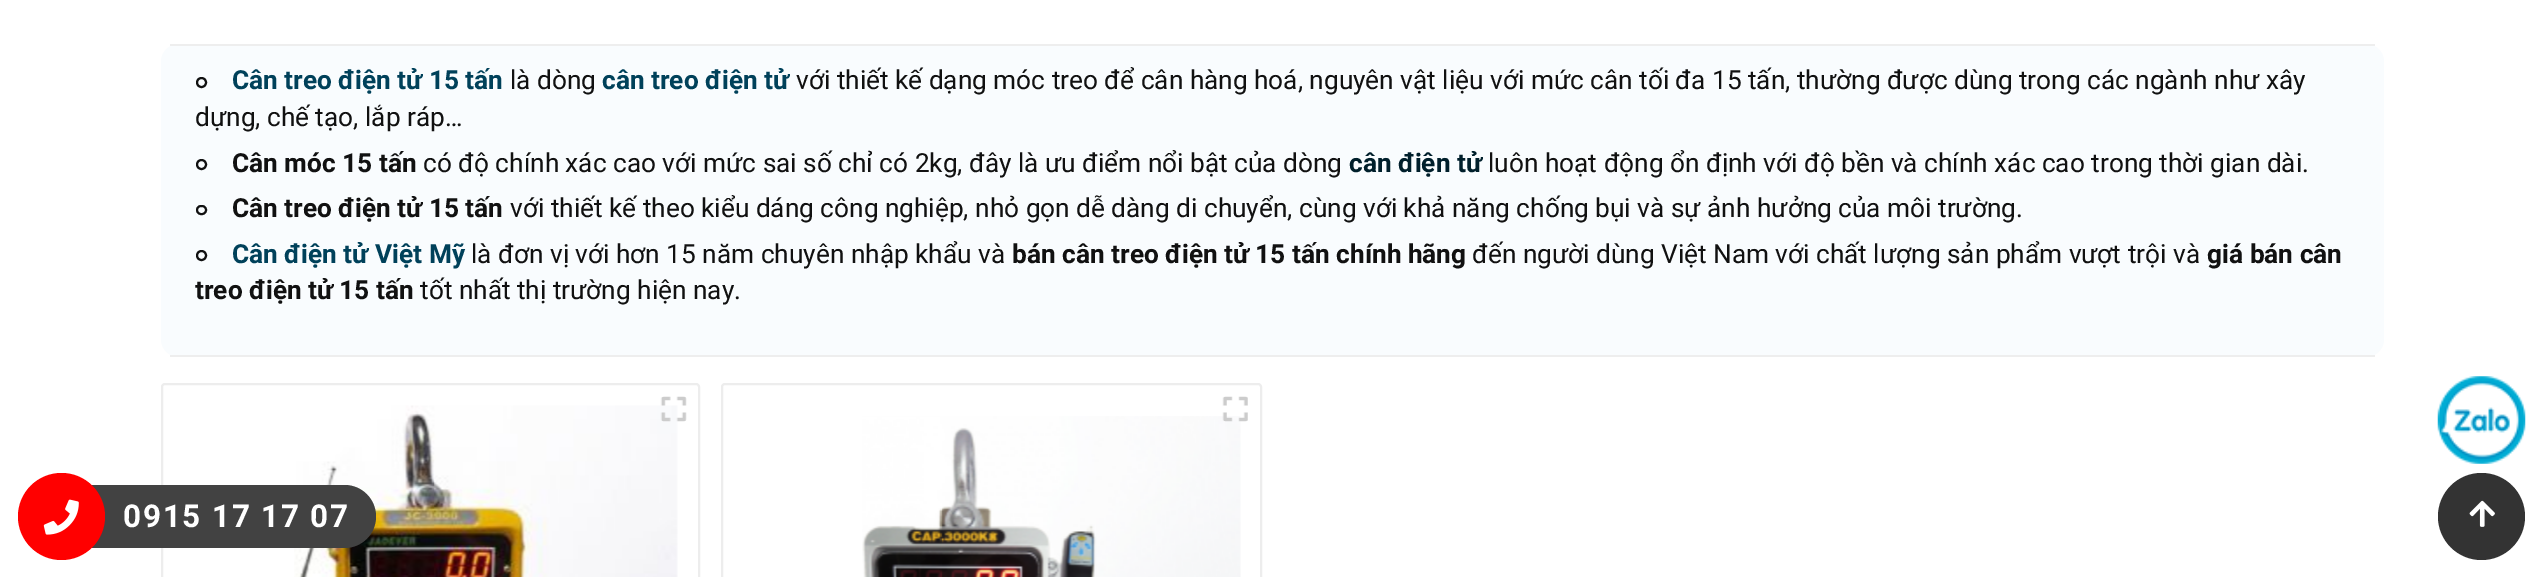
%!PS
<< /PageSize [2542 577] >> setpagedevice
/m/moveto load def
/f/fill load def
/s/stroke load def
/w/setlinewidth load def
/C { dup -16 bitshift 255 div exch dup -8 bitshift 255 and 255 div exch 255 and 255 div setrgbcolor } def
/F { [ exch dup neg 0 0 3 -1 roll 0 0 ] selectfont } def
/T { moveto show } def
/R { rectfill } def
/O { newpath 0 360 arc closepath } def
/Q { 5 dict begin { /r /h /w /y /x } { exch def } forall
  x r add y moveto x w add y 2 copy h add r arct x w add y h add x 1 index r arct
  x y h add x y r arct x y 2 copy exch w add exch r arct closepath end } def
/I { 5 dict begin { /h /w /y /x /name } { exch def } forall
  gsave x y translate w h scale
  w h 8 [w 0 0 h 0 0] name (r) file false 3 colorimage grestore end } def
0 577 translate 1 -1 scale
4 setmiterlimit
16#FFFFFF C
0 0 2542 577 R
16#F9FCFE C
161 44 2223 313 18 Q f
16#EEEEEE C
170 44 2205 2 R
170 355 2205 2 R
16#111111 C
2 w
201.5 82.5 4.5 O s
/Roboto-Bold 26.25 F
16#00415A C
(Cân treo điện tử 15 tấn) 232 89 T
/Roboto-Regular 26.25 F
16#111111 C
(là dòng) 510 89 T
/Roboto-Bold 26.25 F
16#00415A C
(cân treo điện tử) 602 89 T
/Roboto-Regular 26.25 F
16#111111 C
(với thiết kế dạng móc treo để cân hàng hoá, nguyên vật liệu với mức cân tối đa 15 tấn, thường được dùng trong các ngành như xây) 796 89 T
(dựng, chế tạo, lắp ráp…) 195 126 T
201.5 164.5 4.5 O s
/Roboto-Bold 26.25 F
(Cân móc 15 tấn) 232 172 T
/Roboto-Regular 26.25 F
(có độ chính xác cao với mức sai số chỉ có 2kg, đây là ưu điểm nổi bật của dòng) 423 172 T
/Roboto-Bold 26.25 F
16#001F2B C
(cân điện tử) 1349 172 T
/Roboto-Regular 26.25 F
16#111111 C
(luôn hoạt động ổn định với độ bền và chính xác cao trong thời gian dài.) 1488 172 T
197 206 9 8 4 Q s
/Roboto-Bold 26.25 F
(Cân treo điện tử 15 tấn) 232 217 T
/Roboto-Regular 26.25 F
(với thiết kế theo kiểu dáng công nghiệp, nhỏ gọn dễ dàng di chuyển, cùng với khả năng chống bụi và sự ảnh hưởng của môi trường.) 510 217 T
201.5 255.5 4.5 O s
/Roboto-Bold 26.25 F
16#00415A C
(Cân điện tử Việt Mỹ) 232 263 T
/Roboto-Regular 26.25 F
16#111111 C
(là đơn vị với hơn 15 năm chuyên nhập khẩu và) 471 263 T
/Roboto-Bold 26.25 F
(bán cân treo điện tử 15 tấn chính hãng) 1012 263 T
/Roboto-Regular 26.25 F
(đến người dùng Việt Nam với chất lượng sản phẩm vượt trội và) 1472 263 T
/Roboto-Bold 26.25 F
(giá bán cân) 2207 263 T
(treo điện tử 15 tấn) 195 299 T
/Roboto-Regular 26.25 F
(tốt nhất thị trường hiện nay.) 420 299 T
(2.rgb) 294 405 384 172 I
16#EDEDED C
162 384 537 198 3 Q s
(1.rgb) 660 396 27 26 I
(4.rgb) 862 416 379 161 I
722 384 539 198 3 Q s
(3.rgb) 1222 396 26 26 I
(5.rgb) 2437 376 89 88 I
16#424242 C
44 485 332 63 31.5 Q f
16#FF0000 C
61.5 516.5 43.5 O f
(6.rgb) 43 499 36 36 I
/Roboto-Bold 31.5 F
16#FFFFFF C
123 527 m 1.75 0 (0915 17 17 07) ashow
16#333333 C
2481.5 516.5 43.5 O f
(7.rgb) 2469 500 26 27 I
showpage
